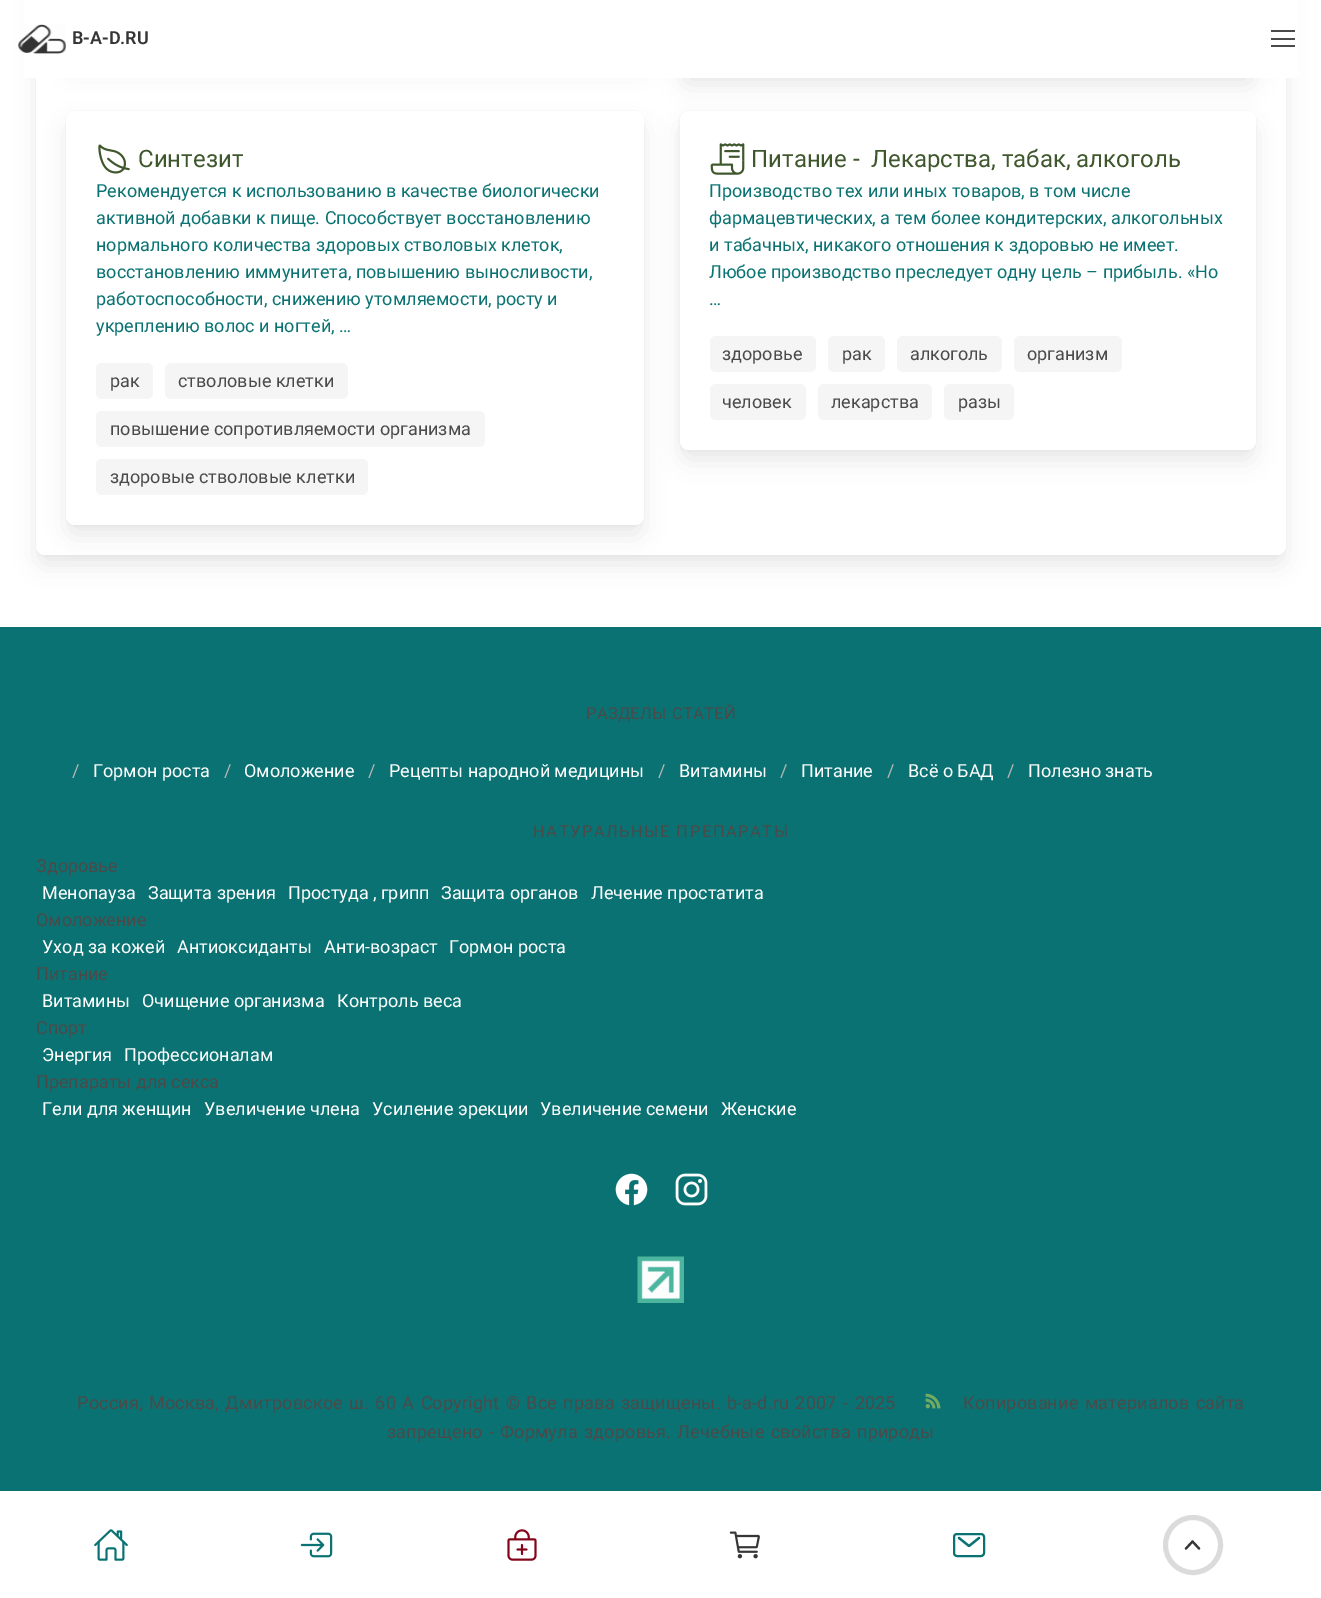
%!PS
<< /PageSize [1321 1598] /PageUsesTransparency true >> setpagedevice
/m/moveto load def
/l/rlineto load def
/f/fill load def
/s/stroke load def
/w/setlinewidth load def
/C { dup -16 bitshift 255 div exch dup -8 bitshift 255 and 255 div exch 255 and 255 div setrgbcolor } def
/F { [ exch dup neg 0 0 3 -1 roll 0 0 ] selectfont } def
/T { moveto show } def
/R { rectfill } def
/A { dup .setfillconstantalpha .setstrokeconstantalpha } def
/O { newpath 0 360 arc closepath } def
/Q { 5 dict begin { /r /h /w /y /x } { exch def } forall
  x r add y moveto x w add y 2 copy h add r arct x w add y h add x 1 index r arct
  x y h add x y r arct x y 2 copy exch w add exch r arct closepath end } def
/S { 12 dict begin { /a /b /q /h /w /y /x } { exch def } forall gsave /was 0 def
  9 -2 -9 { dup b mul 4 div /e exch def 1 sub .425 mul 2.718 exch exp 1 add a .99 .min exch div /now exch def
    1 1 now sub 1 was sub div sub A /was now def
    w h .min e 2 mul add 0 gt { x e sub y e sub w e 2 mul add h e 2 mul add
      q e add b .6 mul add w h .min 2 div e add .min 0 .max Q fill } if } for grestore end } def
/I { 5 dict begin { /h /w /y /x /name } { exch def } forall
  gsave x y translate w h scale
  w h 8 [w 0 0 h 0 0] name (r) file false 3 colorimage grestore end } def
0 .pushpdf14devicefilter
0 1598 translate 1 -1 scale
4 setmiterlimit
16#FFFFFF C
0 0 1321 1598 R
16#FAFAFA C
2 w
36 -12 1250 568 10 Q s
16#0A0A0A C
39 -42 1244 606 6 12 .1 S
16#FFFFFF C
36 -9 1250 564 9 Q f
16#0A0A0A C
69 -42 572 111 6 12 .1 S
683 -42 570 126 6 12 .1 S
16#FFFFFF C
24 0 1274 78 R
(1.rgb) 18 24 48 30 I
/Roboto-SemiBold 18 F
16#363636 C
(B-A-D.RU) 72 44 T
16#4A4A4A C
1271 30 24 2 R
1271 38 24 2 R
1271 45 24 2 R
16#FAFAFA C
66 111 578 415 10 Q s
16#0A0A0A C
69 126 572 408 6 12 .1 S
16#FFFFFF C
66 111 578 414 9 Q f
(2.rgb) 98 144 32 30 I
/Roboto-Regular 24 F
16#3F572C C
(Синтезит) 138 167 T
/Roboto-Regular 18 F
16#0A7272 C
(Рекомендуется к использованию в качестве биологически) 96 197 T
(активной добавки к пище. Способствует восстановлению) 96 224 T
(нормального количества здоровых стволовых клеток,) 96 251 T
(восстановлению иммунитета, повышению выносливости,) 96 278 T
(работоспособности, снижению утомляемости, росту и) 96 305 T
(укреплению волос и ногтей, …) 96 332 T
16#F5F5F5 C
96 363 57 36 6 Q f
16#4A4A4A C
(рак) 110 387 T
16#F5F5F5 C
165 363 183 36 6 Q f
16#4A4A4A C
(стволовые клетки) 178 387 T
16#F5F5F5 C
96 411 389 36 6 Q f
16#4A4A4A C
(повышение сопротивляемости организма) 110 435 T
16#F5F5F5 C
96 459 272 36 6 Q f
16#4A4A4A C
(здоровые стволовые клетки) 110 483 T
16#FAFAFA C
679 111 577 340 10 Q s
16#0A0A0A C
683 126 570 333 6 12 .1 S
16#FFFFFF C
680 111 576 339 9 Q f
(3.rgb) 710 143 35 32 I
/Roboto-Regular 24 F
16#3F572C C
(Питание -) 751 167 T
(Лекарства, табак, алкоголь) 871 167 T
/Roboto-Regular 18 F
16#0A7272 C
(Производство тех или иных товаров, в том числе) 709 197 T
(фармацевтических, а тем более кондитерских, алкогольных) 709 224 T
(и табачных, никакого отношения к здоровью не имеет.) 709 251 T
(Любое производство преследует одну цель – прибыль. «Но) 709 278 T
(…) 709 305 T
16#F5F5F5 C
710 336 106 36 6 Q f
16#4A4A4A C
(здоровье) 722 360 T
16#F5F5F5 C
828 336 57 36 6 Q f
16#4A4A4A C
(рак) 842 360 T
16#F5F5F5 C
897 336 105 36 6 Q f
16#4A4A4A C
(алкоголь) 910 360 T
16#F5F5F5 C
1014 336 108 36 6 Q f
16#4A4A4A C
(организм) 1027 360 T
16#F5F5F5 C
710 384 96 36 6 Q f
16#4A4A4A C
(человек) 722 408 T
16#F5F5F5 C
818 384 114 36 6 Q f
16#4A4A4A C
(лекарства) 831 408 T
16#F5F5F5 C
944 384 70 36 6 Q f
16#4A4A4A C
(разы) 958 408 T
16#0A7272 C
0 627 1321 864 R
/Roboto-Regular 16.5 F
16#4A4A4A C
586 719 m 2 0 32 .2 0 (РАЗДЕЛЫ СТАТЕЙ) awidthshow
/Roboto-Regular 18 F
16#B5B5B5 C
(/) 72 777 T
16#FFFFFF C
(Гормон роста) 93 777 T
16#B5B5B5 C
(/) 224 777 T
16#FFFFFF C
(Омоложение) 244 777 T
16#B5B5B5 C
(/) 368 777 T
16#FFFFFF C
(Рецепты народной медицины) 389 777 T
16#B5B5B5 C
(/) 658 777 T
16#FFFFFF C
(Витамины) 679 777 T
16#B5B5B5 C
(/) 780 777 T
16#FFFFFF C
(Питание) 801 777 T
16#B5B5B5 C
(/) 887 777 T
16#FFFFFF C
(Всё о БАД) 908 777 T
16#B5B5B5 C
(/) 1007 777 T
16#FFFFFF C
(Полезно знать) 1028 777 T
/Roboto-Regular 16.5 F
16#4A4A4A C
533 837 m 1.5 0 (НАТУРАЛЬНЫЕ ПРЕПАРАТЫ) ashow
/Roboto-Regular 18 F
(Здоровье) 36 872 T
16#FFFFFF C
(Менопауза) 42 899 T
(Защита зрения) 148 899 T
(Простуда , грипп) 288 899 T
(Защита органов) 441 899 T
(Лечение простатита) 591 899 T
16#4A4A4A C
(Омоложение) 36 926 T
16#FFFFFF C
(Уход за кожей) 42 953 T
(Антиоксиданты) 177 953 T
(Анти-возраст) 324 953 T
(Гормон роста) 449 953 T
16#4A4A4A C
(Питание) 36 980 T
16#FFFFFF C
(Витамины) 42 1007 T
(Очищение организма) 142 1007 T
(Контроль веса) 337 1007 T
16#4A4A4A C
(Спорт) 36 1034 T
16#FFFFFF C
(Энергия) 42 1061 T
(Профессионалам) 124 1061 T
16#4A4A4A C
(Препараты для секса) 36 1088 T
16#FFFFFF C
(Гели для женщин) 42 1115 T
(Увеличение члена) 204 1115 T
(Усиление эрекции) 372 1115 T
(Увеличение семени) 540 1115 T
(Женские) 721 1115 T
(4.rgb) 615 1173 33 33 I
(5.rgb) 675 1173 33 33 I
(6.rgb) 637 1256 47 47 I
16#4A4A4A C
77 1409 m 1.75 0 32 .18 0 (Россия, Москва, Дмитровское ш. 60 А Copyright © Все права защищены. b-a-d.ru 2007 - 2025) awidthshow
(7.rgb) 925 1393 16 16 I
963 1409 m 1.75 0 32 .18 0 (Копирование материалов сайта) awidthshow
387 1438 m 1.75 0 32 .18 0 (запрещено -) awidthshow
500 1438 m 1.75 0 32 .18 0 (Формула здоровья. Лечебные свойства природы) awidthshow
(8.rgb) 94 1529 34 32 I
(9.rgb) 300 1532 33 26 I
(10.rgb) 507 1529 30 32 I
(11.rgb) 729 1531 31 28 I
16#0A7272 C
954 1534 30 22 3 Q s
2.2 w
1 setlinecap
1 setlinejoin
959 1538 m 10 8 l 10 -8 l s
16#DBDBDB C
5 w
0 setlinecap
0 setlinejoin
1193 1545 27.5 O s
16#363636 C
2.2 w
1 setlinecap
1 setlinejoin
1186 1548.5 m 6.5 -7 l 6.5 7 l s
.poppdf14devicefilter showpage
